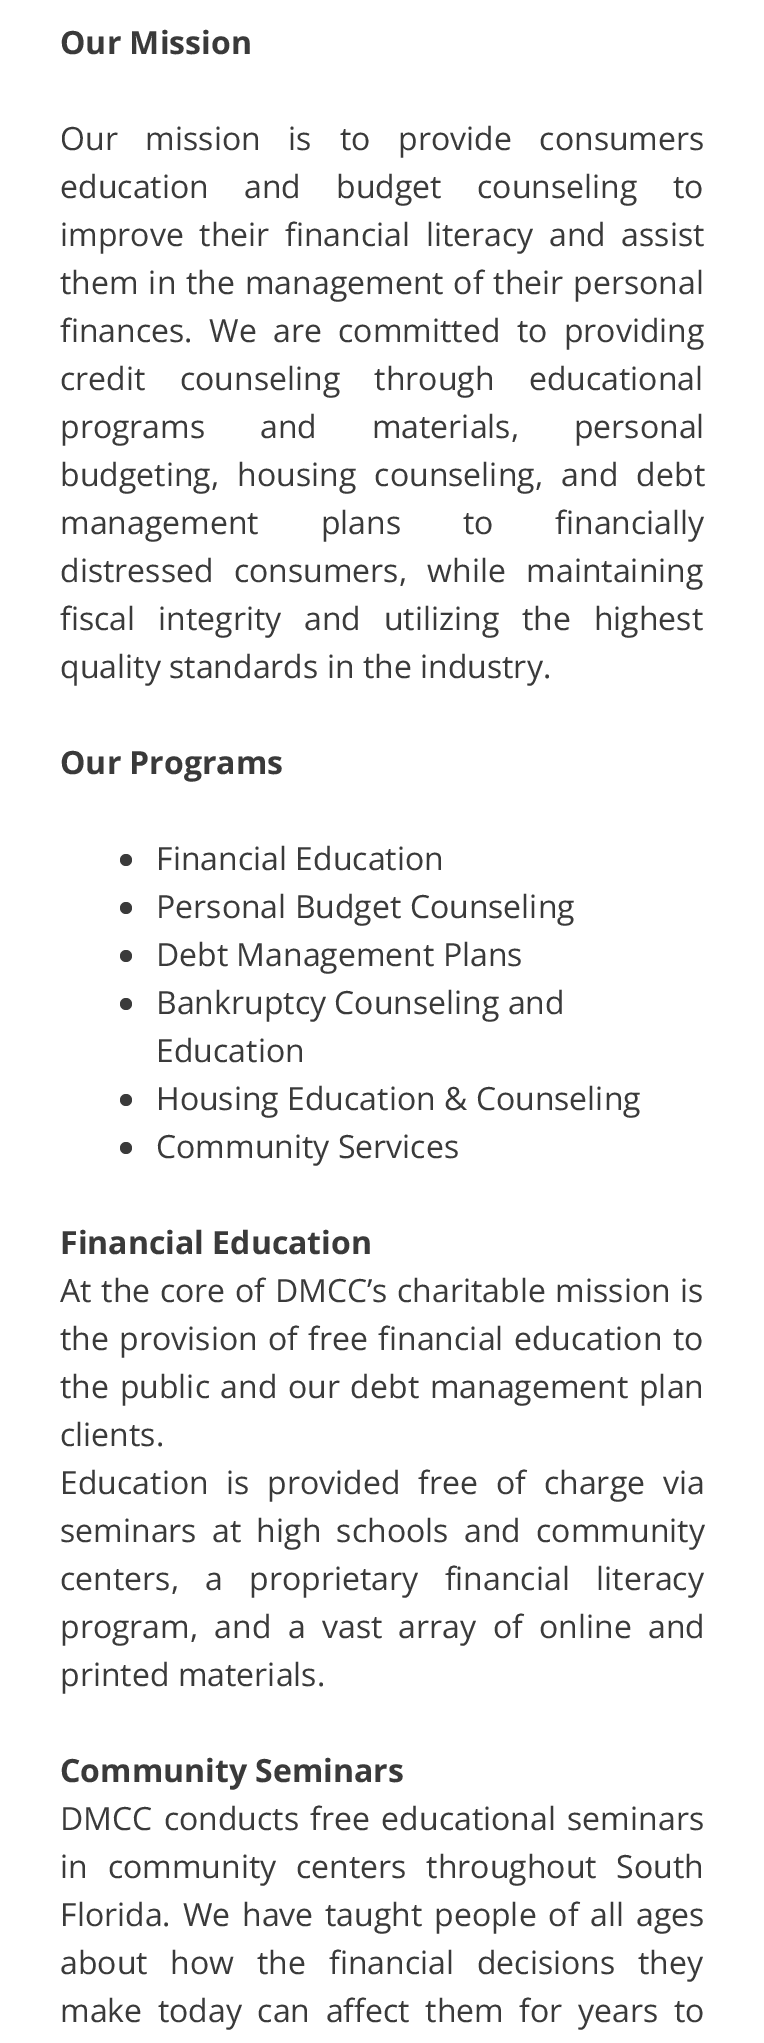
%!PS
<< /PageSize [764 2043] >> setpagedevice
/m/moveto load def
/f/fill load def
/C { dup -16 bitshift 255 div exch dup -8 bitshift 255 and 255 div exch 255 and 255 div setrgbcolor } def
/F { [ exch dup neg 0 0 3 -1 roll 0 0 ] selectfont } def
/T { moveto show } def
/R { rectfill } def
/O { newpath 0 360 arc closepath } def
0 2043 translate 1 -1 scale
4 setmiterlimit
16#FFFFFF C
0 0 764 2043 R
/OpenSans-Bold 32 F
16#3A3A3A C
(Our Mission) 60 54 T
/OpenSans-Regular 32 F
60 150 m 19.5 0 32 (Our mission is to provide consumers) widthshow
60 198 m 27 0 32 (education and budget counseling to) widthshow
60 246 m 7.25 0 32 (improve their financial literacy and assist) widthshow
60 294 m 1.5 0 32 (them in the management of their personal) widthshow
60 342 m 8 0 32 (finances. We are committed to providing) widthshow
60 390 m 26 0 32 (credit counseling through educational) widthshow
60 438 m 46.5 0 32 (programs and materials, personal) widthshow
60 486 m 10 0 32 (budgeting, housing counseling, and debt) widthshow
60 534 m 53.5 0 32 (management plans to financially) widthshow
60 582 m 12 0 32 (distressed consumers, while maintaining) widthshow
60 630 m 14.5 0 32 (fiscal integrity and utilizing the highest) widthshow
(quality standards in the industry.) 60 678 T
/OpenSans-Bold 32 F
(Our Programs) 60 774 T
126 860 6 O f
/OpenSans-Regular 32 F
(Financial Education) 156 870 T
126 908 6 O f
(Personal Budget Counseling) 156 918 T
126 956 6 O f
(Debt Management Plans) 156 966 T
126 1004 6 O f
(Bankruptcy Counseling and) 156 1014 T
(Education) 156 1062 T
126 1100 6 O f
(Housing Education & Counseling) 156 1110 T
126 1148 6 O f
(Community Services) 156 1158 T
/OpenSans-Bold 32 F
(Financial Education) 60 1254 T
/OpenSans-Regular 32 F
60 1302 m 1.25 0 32 (At the core of DMCC’s charitable mission is) widthshow
60 1350 m 2 0 32 (the provision of free financial education to) widthshow
60 1398 m 2.25 0 32 (the public and our debt management plan) widthshow
(clients.) 60 1446 T
60 1494 m 9.5 0 32 (Education is provided free of charge via) widthshow
60 1542 m 7 0 32 (seminars at high schools and community) widthshow
60 1590 m 18 0 32 (centers, a proprietary financial literacy) widthshow
60 1638 m 8 0 32 (program, and a vast array of online and) widthshow
(printed materials.) 60 1686 T
/OpenSans-Bold 32 F
(Community Seminars) 60 1782 T
/OpenSans-Regular 32 F
60 1830 m 3 0 32 (DMCC conducts free educational seminars) widthshow
60 1878 m 11.5 0 32 (in community centers throughout South) widthshow
60 1926 m 3.5 0 32 (Florida. We have taught people of all ages) widthshow
60 1974 m 14.5 0 32 (about how the financial decisions they) widthshow
60 2022 m 7.25 0 32 (make today can affect them for years to) widthshow
showpage
